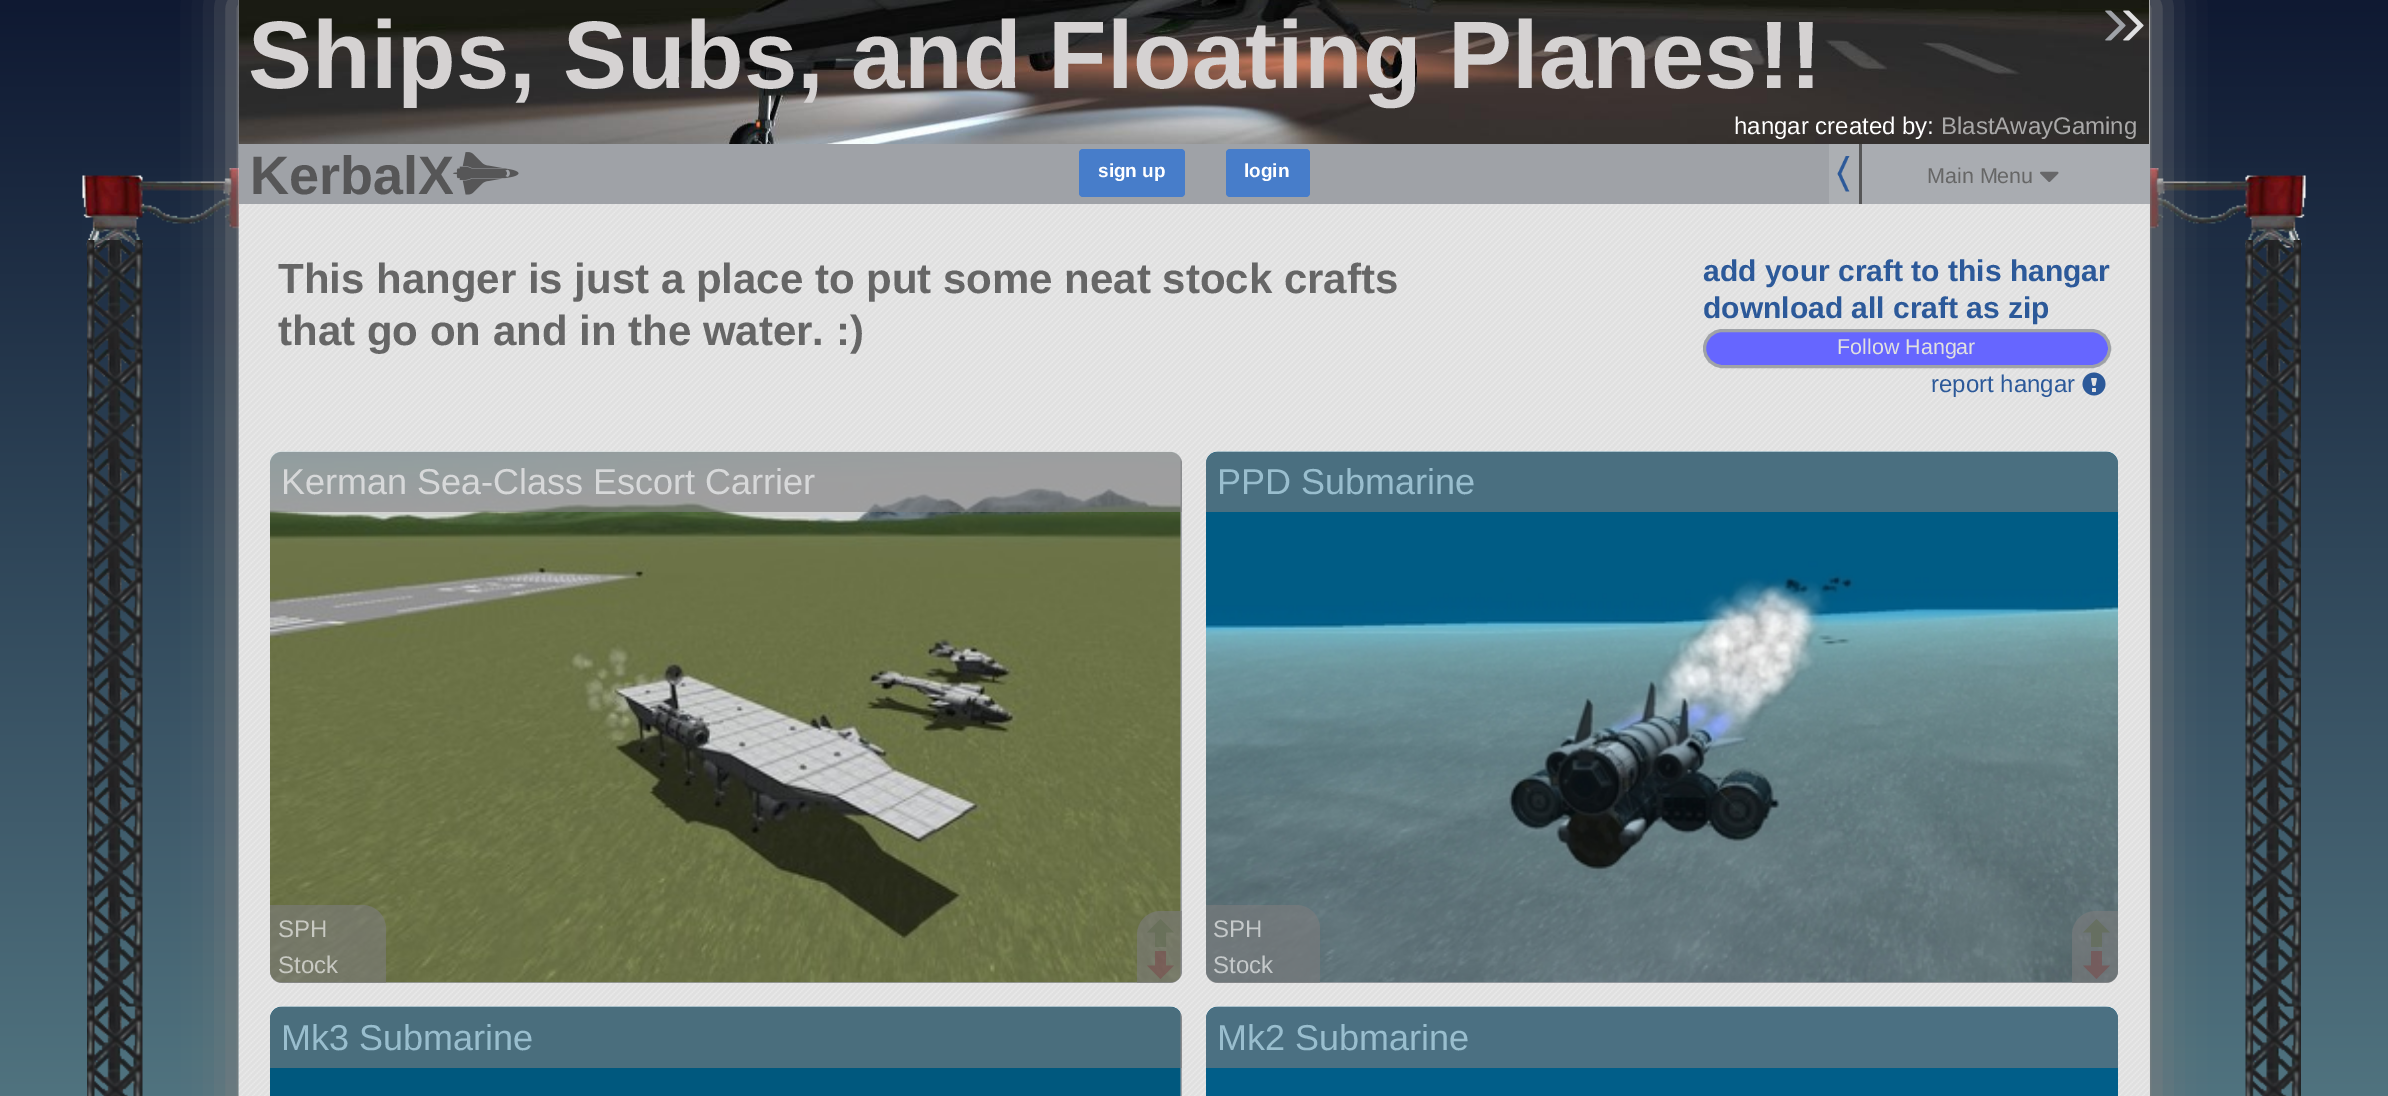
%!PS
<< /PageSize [2388 1096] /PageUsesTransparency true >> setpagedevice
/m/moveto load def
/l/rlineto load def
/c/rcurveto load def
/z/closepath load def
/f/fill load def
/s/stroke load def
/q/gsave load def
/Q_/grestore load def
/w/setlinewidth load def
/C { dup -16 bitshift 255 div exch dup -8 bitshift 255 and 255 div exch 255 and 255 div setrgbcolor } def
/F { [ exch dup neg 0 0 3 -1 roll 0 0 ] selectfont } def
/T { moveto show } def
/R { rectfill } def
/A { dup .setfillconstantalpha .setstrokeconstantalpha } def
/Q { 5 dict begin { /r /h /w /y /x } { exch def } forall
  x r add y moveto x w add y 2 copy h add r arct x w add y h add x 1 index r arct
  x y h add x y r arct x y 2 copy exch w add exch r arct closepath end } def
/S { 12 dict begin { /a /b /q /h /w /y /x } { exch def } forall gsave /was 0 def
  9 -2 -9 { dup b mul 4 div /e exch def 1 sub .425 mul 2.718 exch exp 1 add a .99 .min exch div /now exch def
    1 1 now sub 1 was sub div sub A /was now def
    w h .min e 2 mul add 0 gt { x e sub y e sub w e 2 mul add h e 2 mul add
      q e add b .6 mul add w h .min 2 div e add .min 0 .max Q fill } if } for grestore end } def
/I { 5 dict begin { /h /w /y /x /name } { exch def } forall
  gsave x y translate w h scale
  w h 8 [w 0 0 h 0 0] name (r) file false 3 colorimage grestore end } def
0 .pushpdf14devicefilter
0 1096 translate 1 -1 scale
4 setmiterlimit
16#FFFFFF C
0 0 2388 1096 R
q 0 0 m 2388 0 l 0 1096 l -2388 0 l z clip newpath
<< /ShadingType 2 /ColorSpace /DeviceRGB /Coords [1194 0 1194 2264] /Extend [true true] /Function << /FunctionType 2 /Domain [0 1] /C0 [.059 .098 .196] /C1 [.584 .827 .824] /N 1 >> >> shfill Q_
(13.rgb) 82 168 157 80 I
(14.rgb) 2150 168 156 80 I
16#808080 C
231 -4 1926 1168 0 22.5 1 S
16#E0E0E0 C
2149 204 1 892 R
(1.rgb) 238 0 1911 1096 I
2149 0 1 144 R
(4.rgb) 238 0 1912 144 I
(2.rgb) 2105 10 21 31 I
(3.rgb) 2123 10 21 31 I
/LiberationSans-Bold 96 F
16#D5D2D2 C
(Ships, Subs, and Floating Planes!!) 248 88 T
/LiberationSans-Regular 24 F
16#FFFFFF C
(hangar created by:) 1734 134 T
16#A9A8A8 C
(BlastAwayGaming) 1941 134 T
16#9FA2A7 C
239 144 1590 60 R
/LiberationSans-Bold 54 F
16#565657 C
(KerbalX) 250 194 T
(5.rgb) 453 152 66 43 I
16#477DCA C
1079 149 106 48 4 Q f
/LiberationSans-Bold 19 F
16#FFFFFF C
(sign up) 1098 177 T
16#477DCA C
1226 149 84 48 4 Q f
16#FFFFFF C
(login) 1244 177 T
16#ACAFB3 C
1829 144 30 60 R
16#565657 C
1859 144 3 60 R
(6.rgb) 1837 156 13 36 I
16#A9ACB1 C
1862 144 288 60 R
/LiberationSans-Regular 21.5 F
16#666666 C
(Main Menu) 1927 183 T
(7.rgb) 2040 171 19 11 I
/LiberationSans-Bold 42 F
(This hanger is just a place to put some neat stock crafts) 278 293 T
(that go on and in the water. :\)) 278 345 T
/LiberationSans-Bold 30 F
16#2C5999 C
(add your craft to this hangar) 1703 281 T
(download all craft as zip) 1703 318 T
16#6666FF C
1704.5 330.5 405 36 18 Q q f Q_
16#9FA2A7 C
3 w
s
/LiberationSans-Regular 21.5 F
16#E0E0E0 C
(Follow Hangar) 1837 354 T
/LiberationSans-Regular 24 F
16#2C5999 C
(report hangar) 1931 392 T
(8.rgb) 2082 372 24 24 I
16#9FA2A7 C
270 452 912 531 12 Q f
(9.rgb) 270 451 911 532 I
0.6 A
16#7C7C7D C
282 452 m 888 0 l 6.5 0 12 5.5 12 12 c 0 48 l -912 0 l 0 -48 l 0 -6.5 5.5 -12 12 -12 c z f
/LiberationSans-Regular 36 F
1 A
16#D7D8D9 C
(Kerman Sea-Class Escort Carrier) 281 494 T
0.6 A
16#7C7C7D C
270 905 m 92 0 l 13.5 0 24 10.5 24 24 c 0 54 l -104 0 l -6.5 0 -12 -5.5 -12 -12 c z f
/LiberationSans-Regular 24 F
1 A
16#C8C9C2 C
(SPH) 278 937 T
(Stock) 278 973 T
0.6 A
16#7C7C7D C
1161 911 m 21 0 l 0 60 l 0 6.5 -5.5 12 -12 12 c -33 0 l 0 -48 l 0 -13.5 10.5 -24 24 -24 c z f
16#616B52 C
1160.5 919 m -13.5 13.5 l 8 0 l 0 14.5 l 11 0 l 0 -14.5 l 8 0 l z f
16#794C4C C
1160.5 979 m 13.5 -13.5 l -8 0 l 0 -14.5 l -11 0 l 0 14.5 l -8 0 l z f
1 A
16#9FA2A7 C
1206 452 912 531 12 Q f
(10.rgb) 1206 451 912 532 I
0.6 A
16#7C7C7D C
1218 452 m 888 0 l 6.5 0 12 5.5 12 12 c 0 48 l -912 0 l 0 -48 l 0 -6.5 5.5 -12 12 -12 c z f
/LiberationSans-Regular 36 F
1 A
16#99BECE C
(PPD Submarine) 1217 494 T
0.6 A
16#7C7C7D C
1206 905 m 90 0 l 13.5 0 24 10.5 24 24 c 0 54 l -102 0 l -6.5 0 -12 -5.5 -12 -12 c z f
/LiberationSans-Regular 24 F
1 A
16#C5C9CA C
(SPH) 1213 937 T
(Stock) 1213 973 T
0.6 A
16#7C7C7D C
2096 911 m 22 0 l 0 60 l 0 6.5 -5.5 12 -12 12 c -34 0 l 0 -48 l 0 -13.5 10.5 -24 24 -24 c z f
16#616B52 C
2096.5 919 m -13.5 13.5 l 8 0 l 0 14.5 l 11 0 l 0 -14.5 l 8 0 l z f
16#794C4C C
2096.5 979 m 13.5 -13.5 l -8 0 l 0 -14.5 l -11 0 l 0 14.5 l -8 0 l z f
1 A
16#9FA2A7 C
270 1007 912 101 12 Q f
(11.rgb) 270 1006 911 90 I
0.6 A
16#7C7C7D C
282 1007 m 888 0 l 6.5 0 12 5.5 12 12 c 0 49 l -912 0 l 0 -49 l 0 -6.5 5.5 -12 12 -12 c z f
/LiberationSans-Regular 36 F
1 A
16#99BECE C
(Mk3 Submarine) 281 1050 T
(12.rgb) 1206 1006 912 90 I
0.6 A
16#7C7C7D C
1218 1007 m 888 0 l 6.5 0 12 5.5 12 12 c 0 49 l -912 0 l 0 -49 l 0 -6.5 5.5 -12 12 -12 c z f
1 A
16#99BECE C
(Mk2 Submarine) 1217 1050 T
(15.rgb) 87 240 56 856 I
(16.rgb) 2245 240 56 856 I
.poppdf14devicefilter showpage
